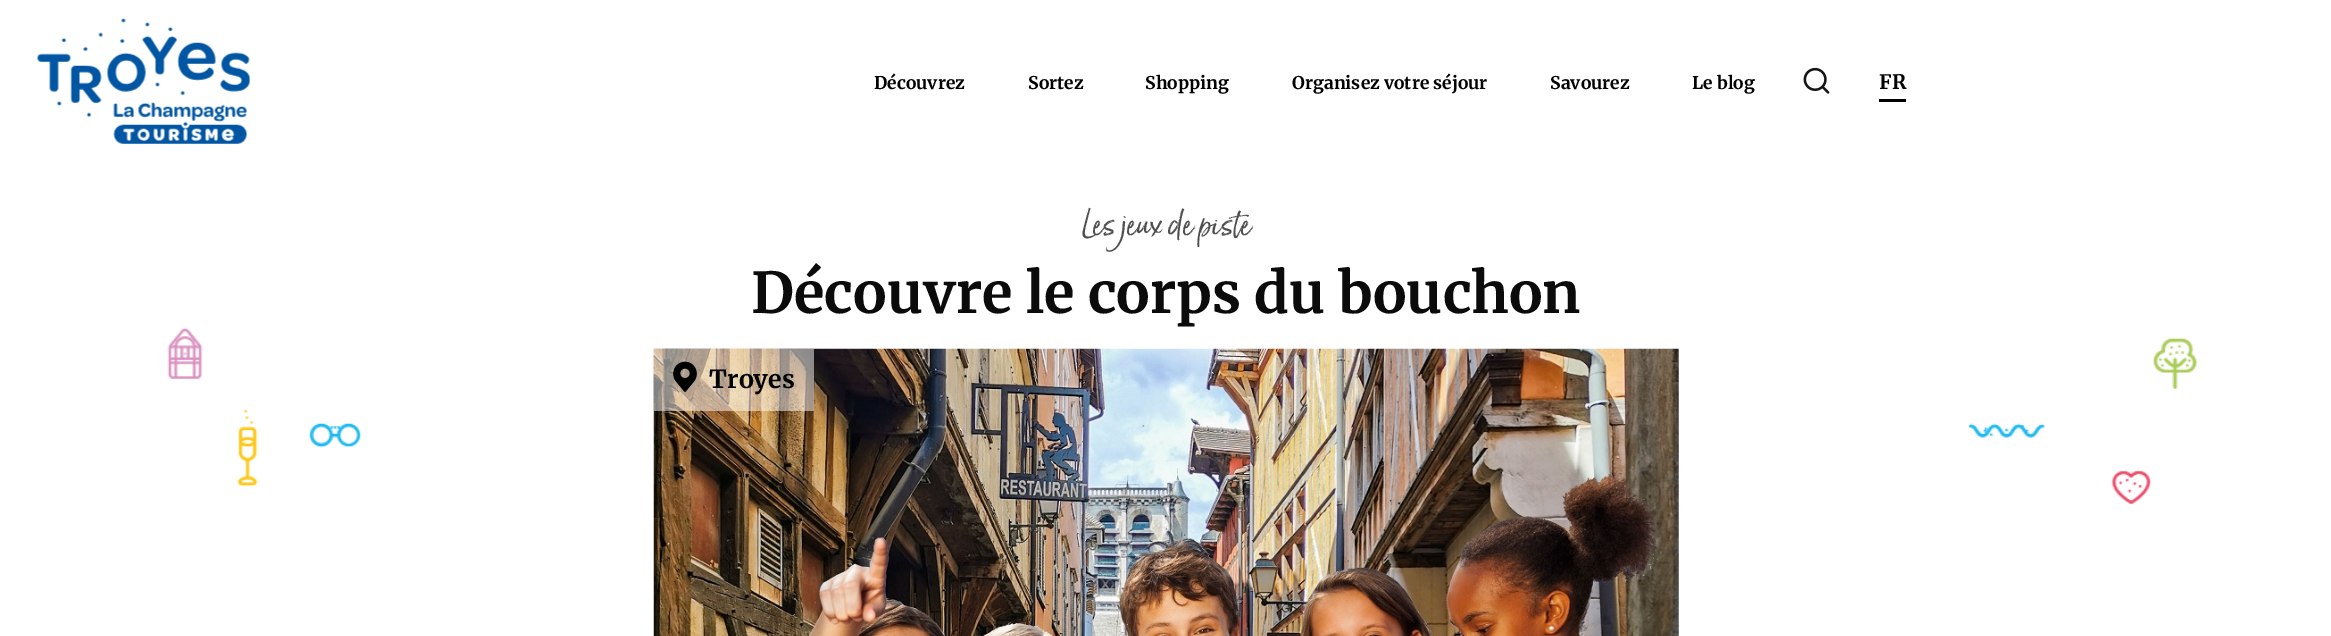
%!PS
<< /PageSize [2331 636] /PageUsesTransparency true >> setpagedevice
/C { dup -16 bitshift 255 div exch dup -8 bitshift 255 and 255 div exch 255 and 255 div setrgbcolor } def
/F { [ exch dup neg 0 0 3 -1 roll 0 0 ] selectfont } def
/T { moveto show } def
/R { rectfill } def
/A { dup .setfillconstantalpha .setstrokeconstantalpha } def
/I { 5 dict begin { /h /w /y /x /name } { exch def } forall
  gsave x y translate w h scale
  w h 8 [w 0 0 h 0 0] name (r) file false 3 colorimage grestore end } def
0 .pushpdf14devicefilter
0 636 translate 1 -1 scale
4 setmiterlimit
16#FFFFFF C
0 0 2331 636 R
(1.rgb) 37 18 214 126 I
/Merriweather-Bold 17.5 F
16#000000 C
(Découvrez) 874 89 T
(Sortez) 1028 89 T
(Shopping) 1145 89 T
(Organisez votre séjour) 1292 89 T
(Savourez) 1550 89 T
(Le blog) 1692 89 T
(2.rgb) 1803 67 27 27 I
/Merriweather-Bold 20 F
(FR) 1879 89 T
1879 99 27 3 R
/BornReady-Regular 31.25 F
16#4E4E4E C
(Les jeux de piste) 1081 234 T
/Merriweather-Bold 56.25 F
16#0B0B0B C
(Découvre le corps du bouchon) 751 313 T
(3.rgb) 167 328 195 159 I
(4.rgb) 653 348 1026 288 I
0.5 A
16#FFFFFF C
654 349 160 62 R
1 A
(5.rgb) 673 361 24 31 I
/Merriweather-Bold 25 F
16#000000 C
(Troyes) 709 388 T
(6.rgb) 1968 338 230 167 I
.poppdf14devicefilter showpage
